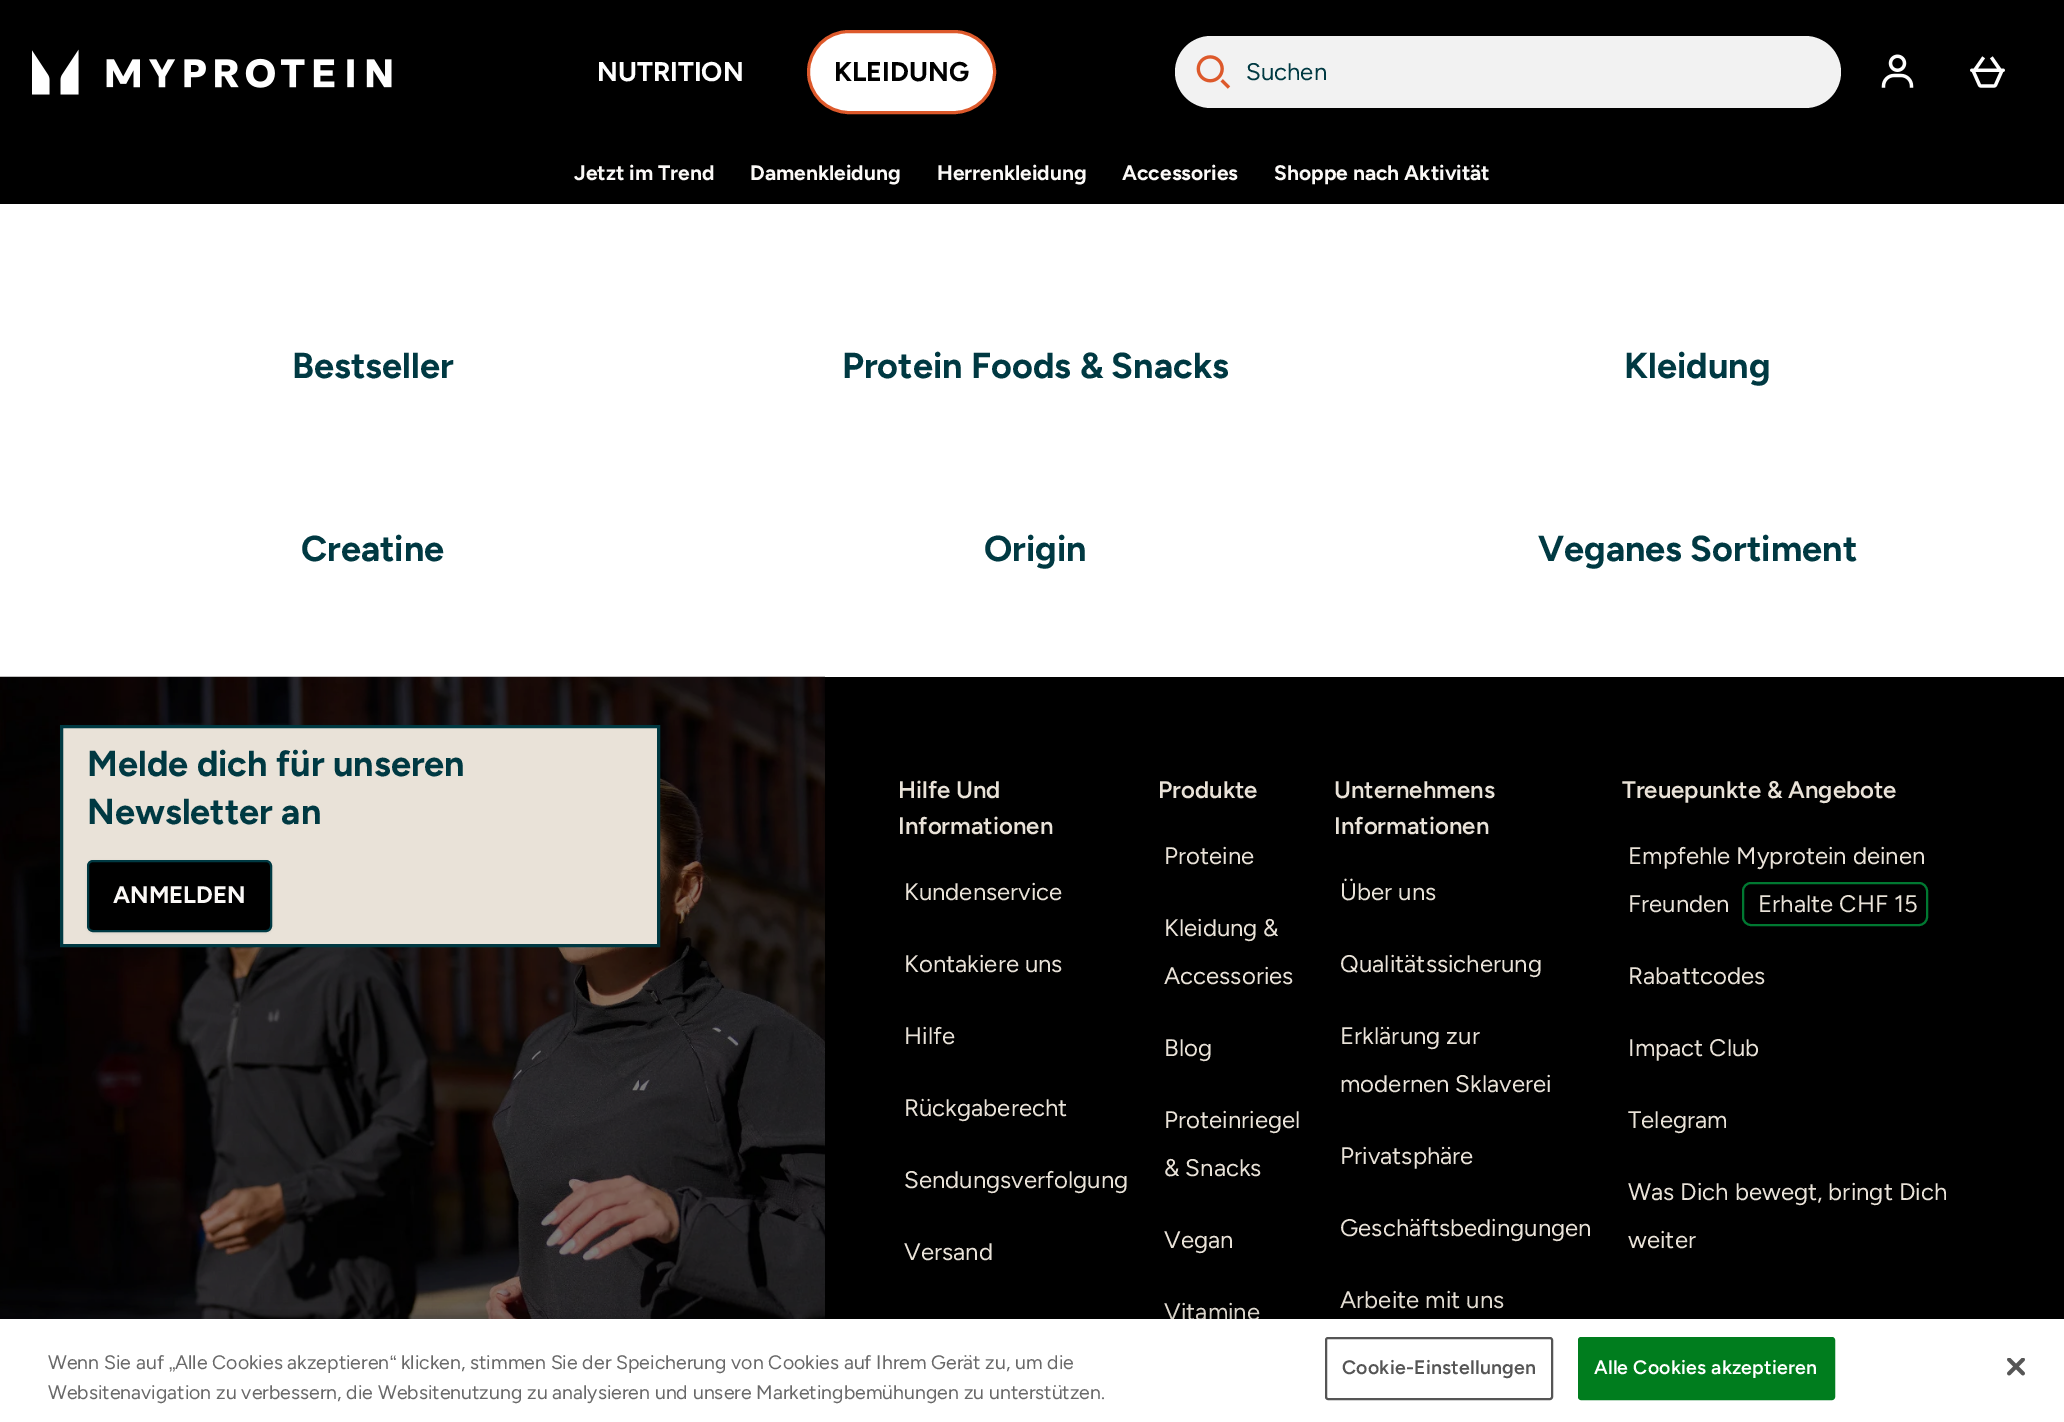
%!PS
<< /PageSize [2064 1422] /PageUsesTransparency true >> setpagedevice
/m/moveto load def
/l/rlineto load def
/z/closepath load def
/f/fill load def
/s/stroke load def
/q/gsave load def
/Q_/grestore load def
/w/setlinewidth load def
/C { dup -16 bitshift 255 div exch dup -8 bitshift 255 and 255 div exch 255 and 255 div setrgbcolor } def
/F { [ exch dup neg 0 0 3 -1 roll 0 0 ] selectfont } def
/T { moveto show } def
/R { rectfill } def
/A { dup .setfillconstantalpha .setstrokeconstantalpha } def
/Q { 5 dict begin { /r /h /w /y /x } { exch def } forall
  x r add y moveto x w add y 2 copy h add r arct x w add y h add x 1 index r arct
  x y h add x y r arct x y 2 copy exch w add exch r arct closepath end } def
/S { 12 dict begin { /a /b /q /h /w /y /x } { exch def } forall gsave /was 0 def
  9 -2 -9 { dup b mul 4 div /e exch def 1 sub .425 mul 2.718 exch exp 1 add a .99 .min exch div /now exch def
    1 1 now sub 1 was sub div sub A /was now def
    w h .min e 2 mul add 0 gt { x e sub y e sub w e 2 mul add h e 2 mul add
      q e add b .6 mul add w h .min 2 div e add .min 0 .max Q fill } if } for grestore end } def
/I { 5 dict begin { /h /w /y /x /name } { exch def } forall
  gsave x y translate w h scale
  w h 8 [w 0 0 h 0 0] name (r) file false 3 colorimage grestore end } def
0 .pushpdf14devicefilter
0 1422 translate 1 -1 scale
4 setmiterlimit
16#FFFFFF C
0 0 2064 1422 R
16#000000 C
0 0 2064 204 R
(1.rgb) 32 49 360 46 I
/Figtree-Bold 27 F
16#FFFFFF C
(NUTRITION) 597 81 T
808.5 31.5 186 81 40.5 Q q f Q_
16#DD592B C
3 w
s
16#000000 C
(KLEIDUNG) 834 81 T
16#F2F2F2 C
1175 36 666 72 36 Q f
(2.rgb) 1196 55 35 34 I
/Figtree-Regular 24 F
16#003942 C
(Suchen) 1246 80 T
(3.rgb) 1881 54 33 34 I
(4.rgb) 1970 56 35 32 I
/Figtree-Bold 21 F
16#FBF9F7 C
(Jetzt im Trend) 574 180 T
(Damenkleidung) 750 180 T
(Herrenkleidung) 937 180 T
(Accessories) 1122 180 T
(Shoppe nach Aktivität) 1274 180 T
/Figtree-Bold 36 F
16#003942 C
(Bestseller) 292 378 T
(Protein Foods & Snacks) 842 378 T
(Kleidung) 1624 378 T
(Creatine) 301 561 T
(Origin) 984 561 T
(Veganes Sortiment) 1538 561 T
(5.rgb) 0 676 825 643 I
16#E9E2D8 C
61.5 726.5 m 597 0 l 0 219 l -597 0 l z q f Q_
16#003942 C
s
(Melde dich für unseren) 87 776 T
(Newsletter an) 87 824 T
16#000000 C
87 861 185 72 6 1.5 .05 S
88 861 183 70 5 Q q f Q_
16#003942 C
2 w
s
/Figtree-Bold 24 F
16#FBF9F7 C
(ANMELDEN) 113 903 T
16#000000 C
825 677 1239 642 R
/Figtree-SemiBold 24 F
16#E9E2D8 C
(Hilfe Und) 898 798 T
(Informationen) 898 834 T
/Figtree-Regular 24 F
(Kundenservice) 904 900 T
(Kontakiere uns) 904 972 T
(Hilfe) 904 1044 T
(Rückgaberecht) 904 1116 T
(Sendungsverfolgung) 904 1188 T
(Versand) 904 1260 T
/Figtree-SemiBold 24 F
(Produkte) 1158 798 T
/Figtree-Regular 24 F
(Proteine) 1164 864 T
(Kleidung &) 1164 936 T
(Accessories) 1164 984 T
(Blog) 1164 1056 T
(Proteinriegel) 1164 1128 T
(& Snacks) 1164 1176 T
(Vegan) 1164 1248 T
(Vitamine) 1164 1320 T
/Figtree-SemiBold 24 F
(Unternehmens) 1334 798 T
(Informationen) 1334 834 T
/Figtree-Regular 24 F
(Über uns) 1340 900 T
(Qualitätssicherung) 1340 972 T
(Erklärung zur) 1340 1044 T
(modernen Sklaverei) 1340 1092 T
(Privatsphäre) 1340 1164 T
(Geschäftsbedingungen) 1340 1236 T
(Arbeite mit uns) 1340 1308 T
/Figtree-SemiBold 24 F
(Treuepunkte & Angebote) 1622 798 T
/Figtree-Regular 24 F
(Empfehle Myprotein deinen) 1628 864 T
(Freunden) 1628 912 T
16#007831 C
1743 883 184 42 8 Q s
16#E9E2D8 C
(Erhalte CHF 15) 1758 912 T
(Rabattcodes) 1628 984 T
(Impact Club) 1628 1056 T
(Telegram) 1628 1128 T
(Was Dich bewegt, bringt Dich) 1628 1200 T
(weiter) 1628 1248 T
16#000000 C
0 1319 2064 103 0 13.5 .2 S
16#FFFFFF C
0 1319 2064 103 R
/Figtree-Regular 19.5 F
16#696969 C
(Wenn Sie auf) 48 1369 T
/LiberationSans-Regular 19.5 F
(„) 169 1369 T
/Figtree-Regular 19.5 F
(Alle Cookies akzeptieren) 175 1369 T
/LiberationSans-Regular 19.5 F
(“) 390 1369 T
/Figtree-Regular 19.5 F
(klicken, stimmen Sie der Speicherung von Cookies auf Ihrem Gerät zu, um die) 401 1369 T
(Websitenavigation zu verbessern, die Websitenutzung zu analysieren und unsere Marketingbemühungen zu unterstützen.) 48 1399 T
16#555555 C
1326 1338 226 61 2 Q s
/Figtree-SemiBold 19.5 F
1342 1374 m .2 0 (Cookie-Einstellungen) ashow
16#007D1E C
1579 1338 255 61 2 Q q f Q_
s
16#FFFFFF C
1594 1374 m .2 0 (Alle Cookies akzeptieren) ashow
(6.rgb) 2007 1358 18 18 I
.poppdf14devicefilter showpage
